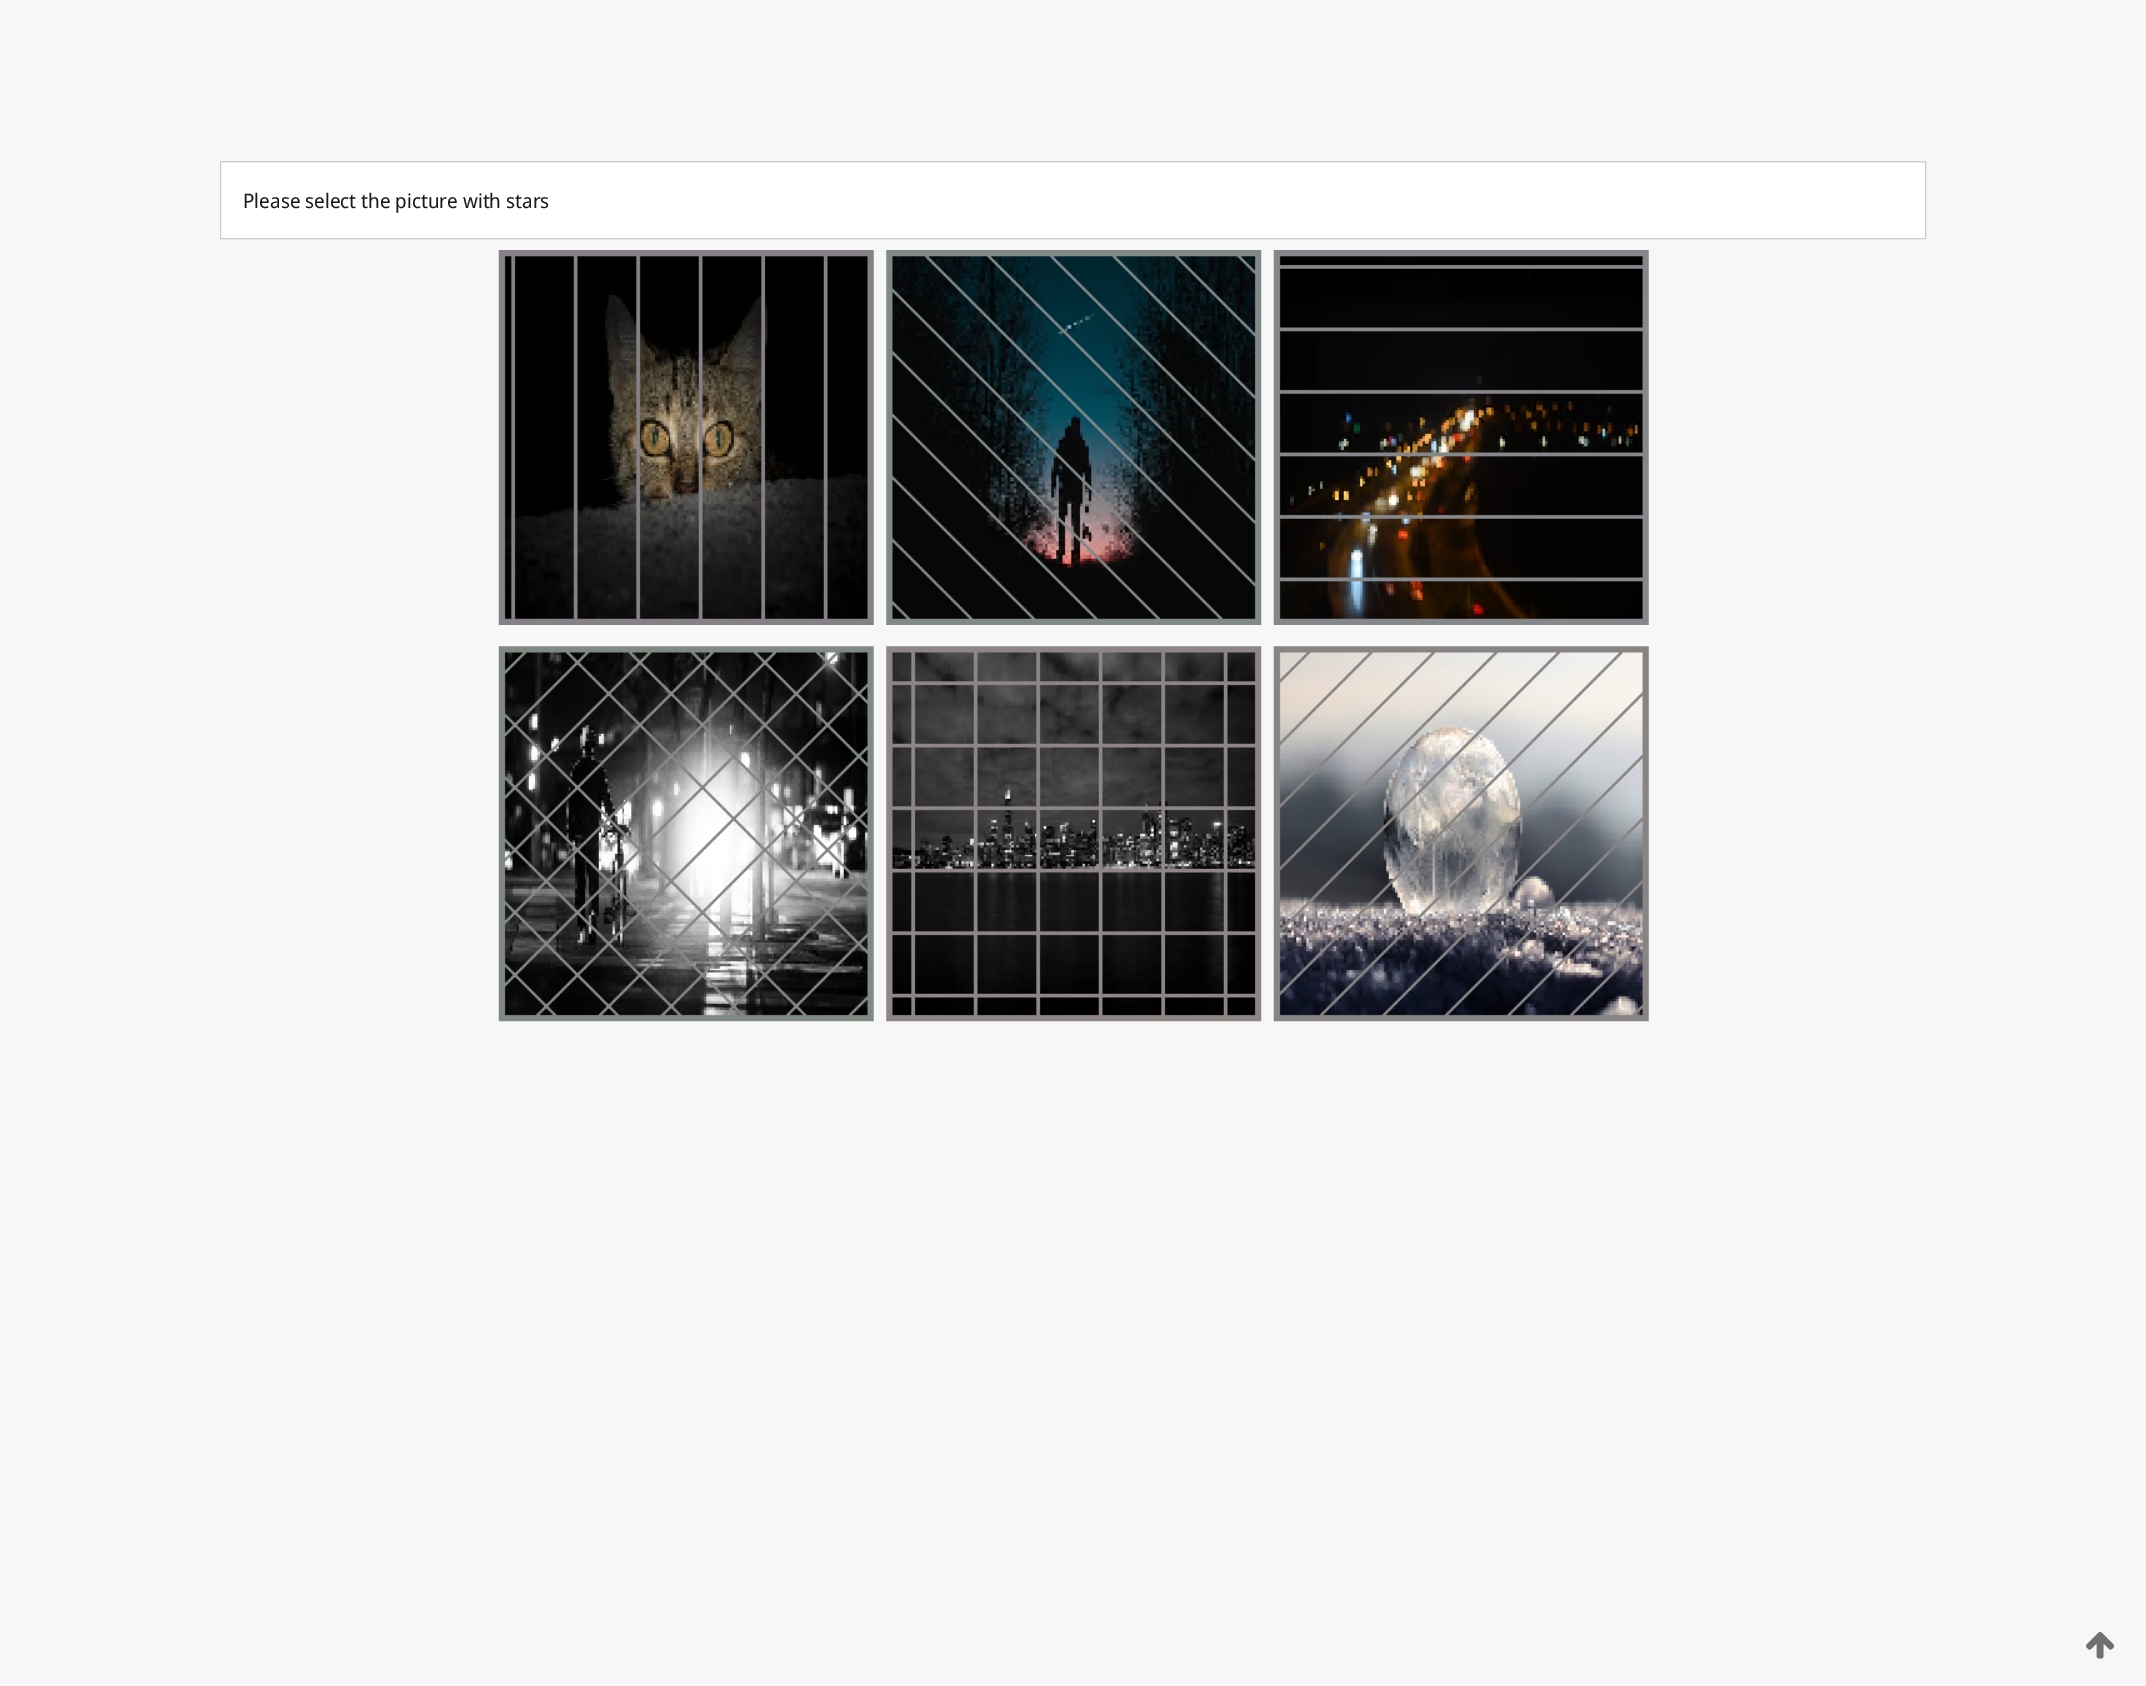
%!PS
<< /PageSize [2146 1686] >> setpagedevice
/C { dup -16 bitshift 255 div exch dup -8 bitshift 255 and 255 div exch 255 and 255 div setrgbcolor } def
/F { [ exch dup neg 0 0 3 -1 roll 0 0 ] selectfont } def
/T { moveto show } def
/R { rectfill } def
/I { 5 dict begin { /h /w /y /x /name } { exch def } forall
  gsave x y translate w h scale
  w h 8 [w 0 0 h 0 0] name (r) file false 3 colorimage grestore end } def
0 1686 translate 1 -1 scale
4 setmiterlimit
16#F7F7F7 C
0 0 2146 1686 R
16#FFFFFF C
221 163 1704 75 R
16#CCCCCC C
220.5 161.5 1705 77 rectstroke
/NotoSansDisplay-Regular 20 F
16#1A1A1A C
(Please select the picture with stars) 243 208 T
(1.rgb) 498 250 376 375 I
(2.rgb) 886 250 376 375 I
(3.rgb) 1273 250 376 375 I
(4.rgb) 498 646 376 376 I
(5.rgb) 886 646 376 376 I
(6.rgb) 1273 646 376 376 I
(7.rgb) 2086 1631 29 28 I
showpage
